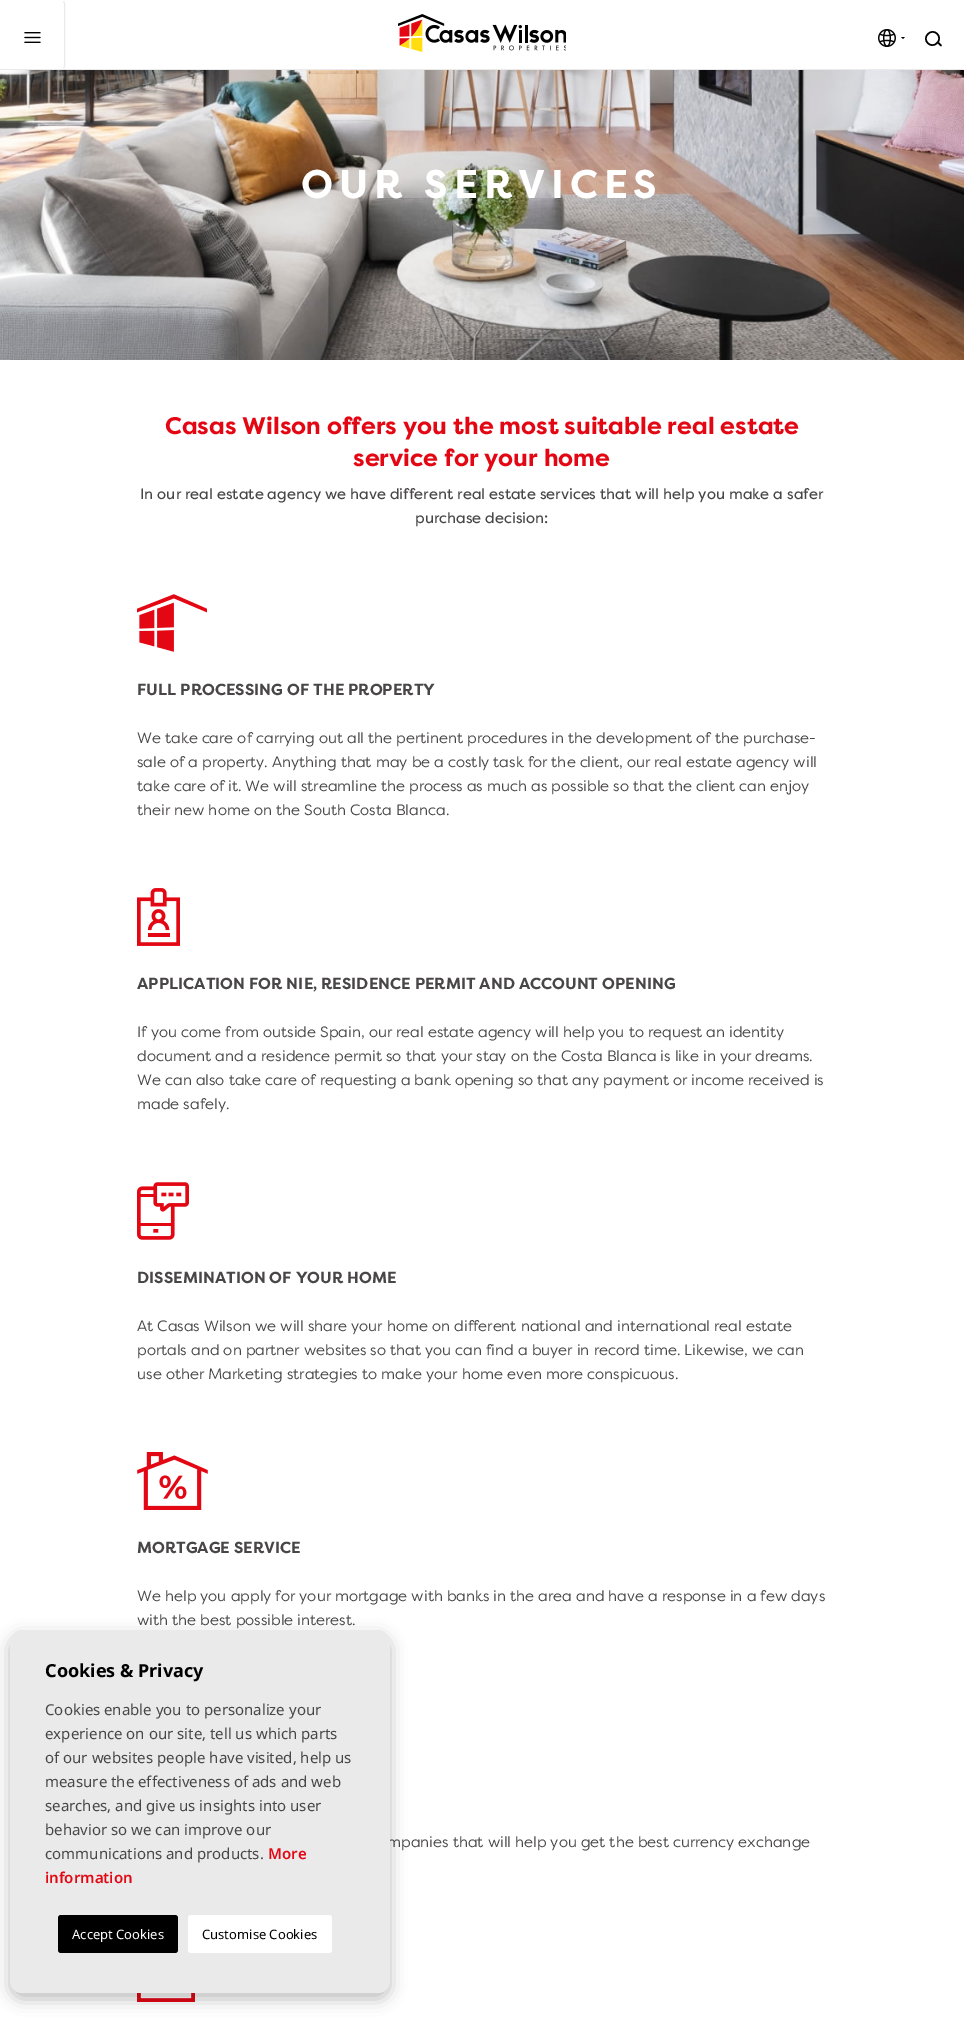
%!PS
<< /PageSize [964 2023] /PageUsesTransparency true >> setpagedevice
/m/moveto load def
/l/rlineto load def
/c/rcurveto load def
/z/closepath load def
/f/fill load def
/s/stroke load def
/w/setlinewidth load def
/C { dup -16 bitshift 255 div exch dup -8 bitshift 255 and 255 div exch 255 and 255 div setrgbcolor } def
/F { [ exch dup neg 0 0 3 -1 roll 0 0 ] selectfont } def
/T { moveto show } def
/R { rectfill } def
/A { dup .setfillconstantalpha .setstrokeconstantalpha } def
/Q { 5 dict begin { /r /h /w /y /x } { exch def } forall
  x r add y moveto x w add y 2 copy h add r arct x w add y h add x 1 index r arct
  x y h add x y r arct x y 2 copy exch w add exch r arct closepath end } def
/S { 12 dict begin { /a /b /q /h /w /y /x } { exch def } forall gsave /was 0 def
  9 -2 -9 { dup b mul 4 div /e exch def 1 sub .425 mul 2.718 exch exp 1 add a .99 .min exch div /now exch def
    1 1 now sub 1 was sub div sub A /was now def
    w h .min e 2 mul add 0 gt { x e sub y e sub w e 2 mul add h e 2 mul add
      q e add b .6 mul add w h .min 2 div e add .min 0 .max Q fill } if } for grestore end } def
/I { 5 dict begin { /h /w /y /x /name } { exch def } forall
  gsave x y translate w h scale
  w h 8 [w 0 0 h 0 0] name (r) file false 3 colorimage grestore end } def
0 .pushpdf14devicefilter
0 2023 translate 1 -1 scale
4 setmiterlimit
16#FFFFFF C
0 0 964 2023 R
16#EAEAEA C
0 69 964 1 R
63.5 1.5 m 1 2 l 0 63 l -1 2 l s
(1.rgb) 24 32 17 11 I
(2.rgb) 398 14 168 38 I
(3.rgb) 878 29 18 18 I
16#000000 C
903 39 m -2 -2 l 4 0 l z f
1.5 w
928 34 m 6 -6.5 15.5 3 9 9 c -6 6.5 -15.5 -3 -9 -9 c z s
1 setlinecap
938.5 43 m 2.5 2.5 l s
(4.rgb) 0 70 964 290 I
/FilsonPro-Bold 40 F
16#FFFFFF C
301 198 m 6 0 (OUR SERVICES) ashow
/FilsonPro-Bold 24 F
16#E30613 C
(Casas Wilson offers you the most suitable real estate) 165 434 T
(service for your home) 353 466 T
/FilsonPro-Regular 15 F
16#484646 C
(In our real estate agency we have different real estate services that will help you make a safer) 140 499 T
(purchase decision:) 415 523 T
(5.rgb) 137 594 70 58 I
/FilsonPro-Bold 16 F
(FULL PROCESSING OF THE PROPERTY) 137 695 T
/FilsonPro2-Regular 15 F
(We take care of carrying out all the pertinent procedures in the development of the purchase-) 137 743 T
(sale of a property. Anything that may be a costly task for the client, our real estate agency will) 137 767 T
(take care of it. We will streamline the process as much as possible so that the client can enjoy) 137 791 T
(their new home on the South Costa Blanca.) 137 815 T
(6.rgb) 137 888 43 58 I
/FilsonPro-Bold 16 F
(APPLICATION FOR NIE, RESIDENCE PERMIT AND ACCOUNT OPENING) 137 989 T
/FilsonPro2-Regular 15 F
(If you come from outside Spain, our real estate agency will help you to request an identity) 137 1037 T
(document and a residence permit so that your stay on the Costa Blanca is like in your dreams.) 137 1061 T
(We can also take care of requesting a bank opening so that any payment or income received is) 137 1085 T
(made safely.) 137 1109 T
(7.rgb) 137 1182 52 58 I
/FilsonPro-Bold 16 F
(DISSEMINATION OF YOUR HOME) 137 1283 T
/FilsonPro2-Regular 15 F
(At Casas Wilson we will share your home on different national and international real estate) 137 1331 T
(portals and on partner websites so that you can find a buyer in record time. Likewise, we can) 137 1355 T
(use other Marketing strategies to make your home even more conspicuous.) 137 1379 T
(8.rgb) 137 1452 71 58 I
/FilsonPro-Bold 16 F
(MORTGAGE SERVICE) 137 1553 T
/FilsonPro2-Regular 15 F
(We help you apply for your mortgage with banks in the area and have a response in a few days) 137 1601 T
(with the best possible interest.) 137 1625 T
(mpanies that will help you get the best currency exchange) 387 1847 T
(9.rgb) 137 1993 58 9 I
16#000000 C
10 1636 380 363 12 8 .25 S
16#EAEAEA C
10 1630 380 363 12 Q f
/NotoSans-Bold 18 F
16#000000 C
(Cookies & Privacy) 45 1677 T
/NotoSans-Regular 15 F
16#484646 C
(Cookies enable you to personalize your) 45 1715 T
(experience on our site, tell us which parts) 45 1739 T
(of our websites people have visited, help us) 45 1763 T
(measure the effectiveness of ads and web) 45 1787 T
(searches, and give us insights into user) 45 1811 T
(behavior so we can improve our) 45 1835 T
(communications and products.) 45 1859 T
/NotoSans-SemiBold 15 F
16#E30613 C
(More) 268 1859 T
(information) 45 1883 T
16#000000 C
58 1915 120 38 3 Q f
/NotoSans-Regular 13 F
16#FFFFFF C
(Accept Cookies) 72 1939 T
188 1915 144 38 3 Q f
16#000000 C
(Customise Cookies) 202 1939 T
.poppdf14devicefilter showpage
